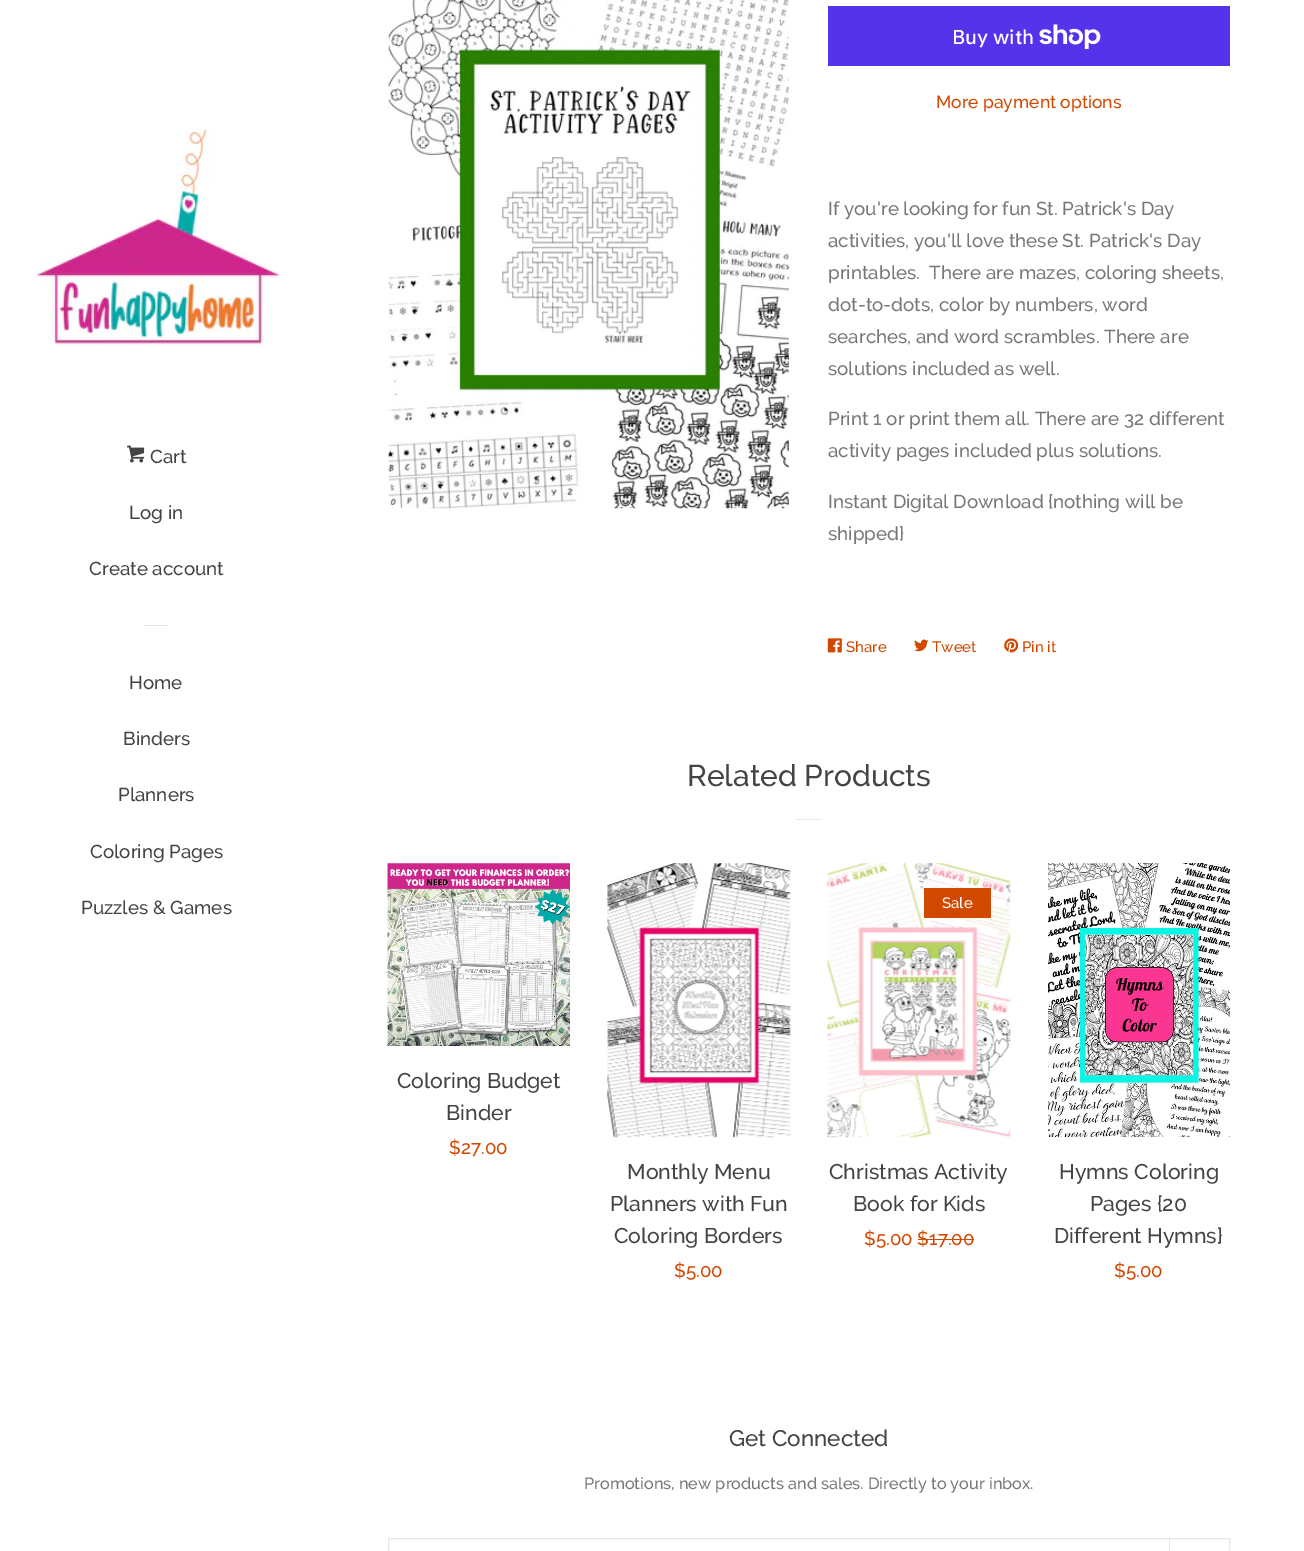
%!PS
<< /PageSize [1304 1551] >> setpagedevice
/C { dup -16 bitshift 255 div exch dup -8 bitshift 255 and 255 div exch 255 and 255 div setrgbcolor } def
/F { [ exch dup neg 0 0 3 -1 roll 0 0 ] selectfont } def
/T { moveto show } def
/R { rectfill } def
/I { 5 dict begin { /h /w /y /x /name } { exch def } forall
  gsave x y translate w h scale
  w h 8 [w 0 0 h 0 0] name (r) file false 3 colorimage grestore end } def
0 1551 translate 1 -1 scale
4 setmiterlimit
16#FFFFFF C
0 0 1304 1551 R
(1.rgb) 35 128 244 219 I
(2.rgb) 127 445 18 18 I
/Raleway-Medium 18.75 F
16#444444 C
(Cart) 150 463 T
(Log in) 129 519 T
(Create account) 89 575 T
16#E6E6E6 C
144 625 25 1 R
16#444444 C
(Home) 129 689 T
(Binders) 123 745 T
(Planners) 118 801 T
(Coloring Pages) 90 858 T
(Puzzles & Games) 81 914 T
(3.rgb) 388 0 401 509 I
16#5433EB C
828 6 402 60 R
/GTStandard-Medium 20 F
16#FFFFFF C
(Buy with) 952 44 T
(4.rgb) 1039 24 62 25 I
/Raleway-Medium 17.5 F
16#D14800 C
(More payment options) 936 108 T
/Raleway-Medium 18.75 F
16#777777 C
(If you're looking for fun St. Patrick's Day) 828 215 T
(activities, you'll love these St. Patrick's Day) 828 247 T
(printables.  There are mazes, coloring sheets,) 828 279 T
(dot-to-dots, color by numbers, word) 828 311 T
(searches, and word scrambles. There are) 828 343 T
(solutions included as well.) 828 375 T
(Print 1 or print them all. There are 32 different) 828 425 T
(activity pages included plus solutions.) 828 457 T
(Instant Digital Download {nothing will be) 828 508 T
(shipped}) 828 540 T
(5.rgb) 827 638 15 15 I
/Raleway-Medium 15 F
16#D14800 C
(Share) 846 652 T
(6.rgb) 914 639 15 13 I
(Tweet) 932 652 T
(7.rgb) 1004 638 15 15 I
(Pin it) 1022 652 T
/Raleway-Medium 30 F
16#444444 C
(Related Products) 687 786 T
16#E7E7E7 C
796 819 25 1 R
(8.rgb) 387 863 183 183 I
/Raleway-Medium 21.25 F
16#444444 C
(Coloring Budget) 397 1088 T
(Binder) 446 1120 T
/Raleway-Medium 18.75 F
16#D14800 C
($27.00) 449 1154 T
(9.rgb) 827 863 184 275 I
924 888 67 30 R
/Raleway-Medium 15 F
16#FFFFFF C
(Sale) 942 908 T
/Raleway-Medium 21.25 F
16#444444 C
(Christmas Activity) 829 1179 T
(Book for Kids) 853 1211 T
/Raleway-Medium 18.75 F
16#D14800 C
($5.00 $17.00) 864 1245 T
918 1239 56 1 R
(10.rgb) 607 863 184 275 I
/Raleway-Medium 21.25 F
16#444444 C
(Monthly Menu) 627 1179 T
(Planners with Fun) 610 1211 T
(Coloring Borders) 614 1243 T
/Raleway-Medium 18.75 F
16#D14800 C
($5.00) 674 1277 T
(11.rgb) 1048 863 182 274 I
/Raleway-Medium 21.25 F
16#444444 C
(Hymns Coloring) 1059 1179 T
(Pages {20) 1090 1211 T
(Different Hymns}) 1054 1243 T
/Raleway-Medium 18.75 F
16#D14800 C
($5.00) 1114 1277 T
/Raleway-Medium 22.5 F
16#444444 C
(Get Connected) 729 1446 T
/Raleway-Medium 16.25 F
16#777777 C
(Promotions, new products and sales. Directly to your inbox.) 584 1489 T
16#E7E7E7 C
388.5 1538.5 841 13 rectstroke
1169 1539 1 12 R
showpage
